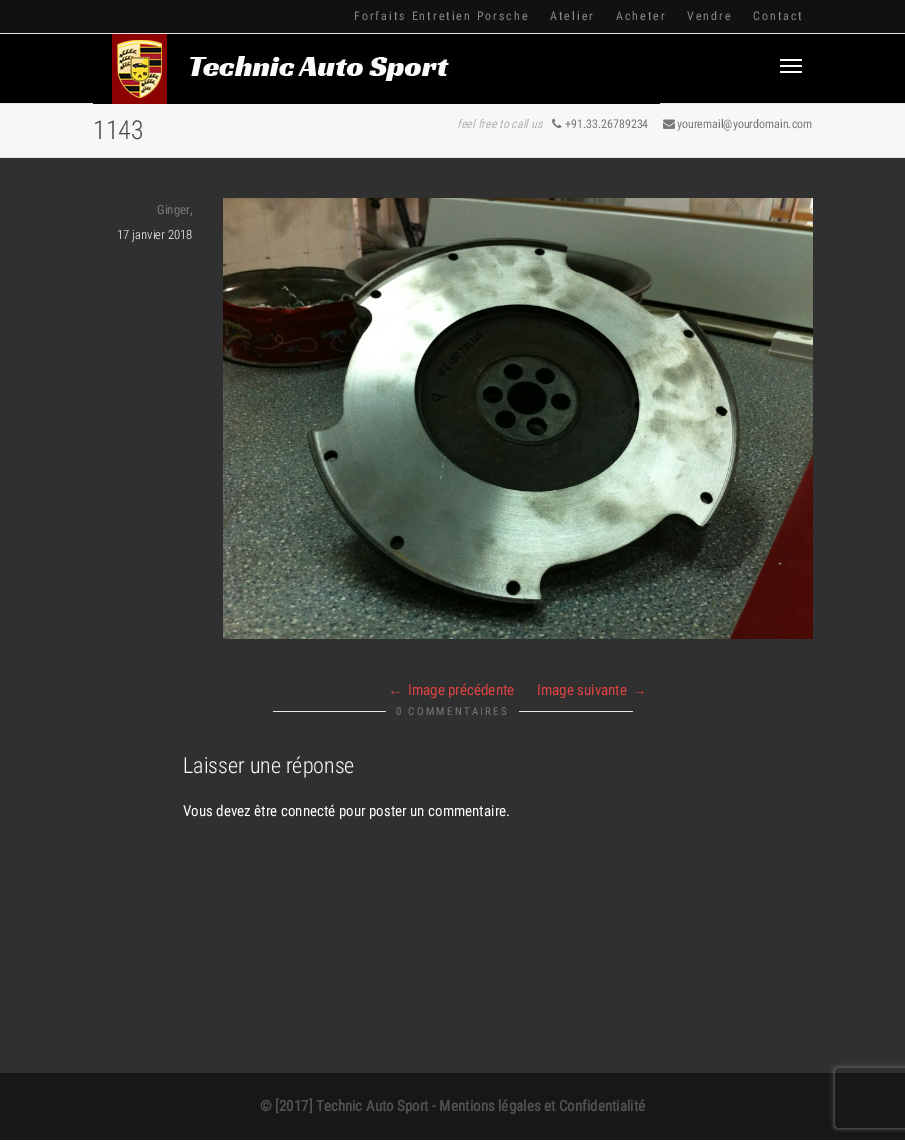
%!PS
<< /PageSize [905 1142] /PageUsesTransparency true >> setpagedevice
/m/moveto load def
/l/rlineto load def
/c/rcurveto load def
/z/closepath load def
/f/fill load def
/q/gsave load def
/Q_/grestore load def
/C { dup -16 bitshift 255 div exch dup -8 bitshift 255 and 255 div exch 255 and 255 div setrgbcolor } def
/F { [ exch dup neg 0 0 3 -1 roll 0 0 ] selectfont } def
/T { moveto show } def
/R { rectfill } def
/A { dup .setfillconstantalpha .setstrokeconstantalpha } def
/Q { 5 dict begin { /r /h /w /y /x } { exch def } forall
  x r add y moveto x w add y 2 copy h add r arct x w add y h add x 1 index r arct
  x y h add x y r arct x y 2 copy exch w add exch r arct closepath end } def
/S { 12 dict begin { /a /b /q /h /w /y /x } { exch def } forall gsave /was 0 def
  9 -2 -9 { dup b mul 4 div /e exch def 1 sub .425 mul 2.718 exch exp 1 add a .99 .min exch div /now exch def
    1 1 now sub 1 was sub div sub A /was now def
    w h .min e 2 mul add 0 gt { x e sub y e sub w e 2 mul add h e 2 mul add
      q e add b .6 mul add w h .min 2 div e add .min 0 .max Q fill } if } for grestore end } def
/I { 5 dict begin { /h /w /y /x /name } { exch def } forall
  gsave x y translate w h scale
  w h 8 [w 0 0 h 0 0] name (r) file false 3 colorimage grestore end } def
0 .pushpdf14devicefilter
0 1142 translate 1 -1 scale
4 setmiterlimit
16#FFFFFF C
0 0 905 1142 R
16#111111 C
0 0 905 33 R
16#E5E5E5 C
0 33 905 1 R
/RobotoCondensed-Regular 12 F
16#878787 C
354 20 m 2 0 (Forfaits Entretien Porsche) ashow
550 20 m 2 0 (Atelier) ashow
616 20 m 2 0 (Acheter) ashow
687 20 m 2 0 (Vendre) ashow
753 20 m 2 0 (Contact) ashow
16#000000 C
0 34 905 69 R
16#E5E5E5 C
0 103 905 1 R
(1.rgb) 93 34 567 70 I
16#FFFFFF C
780 59 22 2 1 Q f
780 65 22 2 1 Q f
780 71 22 2 1 Q f
16#303030 C
0 158 905 915 R
16#F7F7F7 C
0 104 905 53 R
16#E5E5E5 C
0 157 905 1 R
/RobotoCondensed-Light 26 F
16#444444 C
(1143) 93 139 T
/RobotoCondensed-Italic 12 F
16#B3B3B3 C
(feel free to call us) 457 128 T
(2.rgb) 552 118 10 11 I
/RobotoCondensed-Regular 12 F
16#777777 C
(+91.33.26789234) 565 128 T
(3.rgb) 663 119 12 10 I
(youremail@yourdomain.com) 677 128 T
/RobotoCondensed-Regular 12.75 F
(Ginger) 157 214 T
/RobotoCondensed-Regular 15 F
(,) 190 214 T
/RobotoCondensed-Light 12.75 F
16#FFFFFF C
(17 janvier 2018) 117 239 T
(4.rgb) 223 198 590 441 I
/LiberationSerif-Regular 15 F
16#DD4242 C
(←) 388 695 T
/RobotoCondensed-Regular 15 F
(Image précédente) 408 695 T
(Image suivante) 537 695 T
/LiberationSerif-Regular 15 F
(→) 632 695 T
16#E5E5E5 C
273 711 360 1 R
16#303030 C
386 703 133 17 2 Q f
/RobotoCondensed-Regular 11 F
16#777777 C
396 715 m 2.25 0 (0 COMMENTAIRES) ashow
/RobotoCondensed-Light 22 F
16#FFFFFF C
(Laisser une réponse) 183 773 T
/RobotoCondensed-Regular 15 F
(Vous devez être connecté pour poster un commentaire.) 183 816 T
16#171717 C
0 1073 905 67 R
/RobotoCondensed-Bold 15 F
16#515151 C
(© [2017] Technic Auto Sport - Mentions légales et Confidentialité) 260 1111 T
q
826 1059 m 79 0 l 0 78 l -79 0 l z 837 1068 m 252 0 l 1 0 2 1 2 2 c 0 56 l 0 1 -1 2 -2 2 c -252 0 l -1 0 -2 -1 -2 -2 c 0 -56 l 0 -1 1 -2 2 -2 c z eoclip newpath
16#808080 C
835 1068 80 60 2 2.5 1 S
Q_
.poppdf14devicefilter showpage
